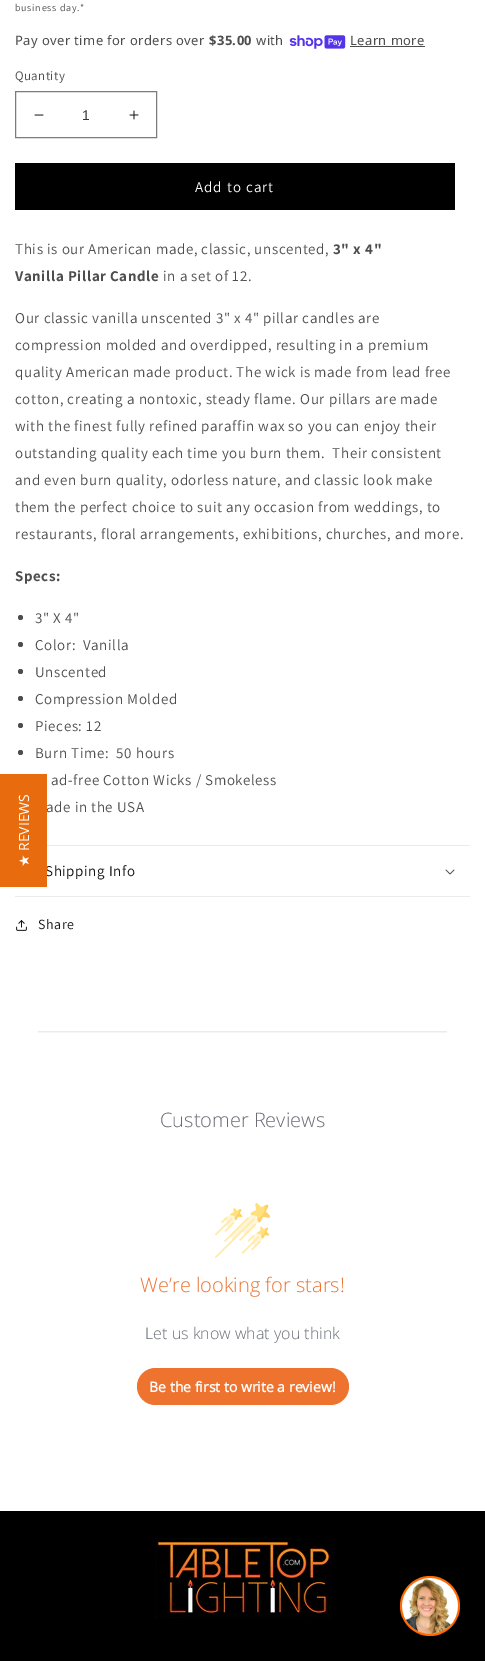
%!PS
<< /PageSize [485 1661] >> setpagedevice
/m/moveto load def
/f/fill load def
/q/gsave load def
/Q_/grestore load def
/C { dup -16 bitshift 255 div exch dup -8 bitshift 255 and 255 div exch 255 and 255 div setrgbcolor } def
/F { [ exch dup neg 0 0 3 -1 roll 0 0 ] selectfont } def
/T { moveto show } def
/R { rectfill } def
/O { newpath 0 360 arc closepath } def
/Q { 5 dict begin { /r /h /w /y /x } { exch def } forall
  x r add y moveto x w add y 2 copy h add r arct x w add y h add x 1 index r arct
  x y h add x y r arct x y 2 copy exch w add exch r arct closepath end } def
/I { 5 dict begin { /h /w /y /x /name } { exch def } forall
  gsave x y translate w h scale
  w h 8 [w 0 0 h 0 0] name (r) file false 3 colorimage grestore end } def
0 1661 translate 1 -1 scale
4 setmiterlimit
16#FFFFFF C
0 0 485 1661 R
/Assistant-Regular 10 F
16#4D4D4D C
15 11 m .75 0 (business day.*) ashow
/NotoSans-Regular 13 F
15 45 m .4 0 (Pay over time for orders over) ashow
/NotoSans-Bold 13 F
209 45 m .4 0 ($35.00) ashow
/NotoSans-Regular 13 F
256 45 m .4 0 (with) ashow
(1.rgb) 289 35 57 14 I
350 45 m .4 0 (Learn more) ashow
350 46 75 1 R
/Assistant-Regular 13 F
15 80 m .4 0 (Quantity) ashow
(2.rgb) 34 114 10 2 I
(3.rgb) 129 110 10 10 I
16#7D7D7D C
15.5 91.5 141 46 rectstroke
/LiberationSans-Regular 14 F
16#363636 C
(1) 82 120 T
16#000000 C
15 163 440 47 R
/Assistant-Regular 15 F
16#FFFFFF C
195 192 m 1 0 (Add to cart) ashow
16#4D4D4D C
15 254 m .6 0 (This is our American made, classic, unscented,) ashow
/Assistant-Bold 15 F
333 254 m .6 0 (3" x 4") ashow
15 281 m .6 0 (Vanilla Pillar Candle) ashow
/Assistant-Regular 15 F
163 281 m .6 0 (in a set of 12.) ashow
15 323 m .6 0 (Our classic vanilla unscented 3" x 4" pillar candles are) ashow
15 350 m .6 0 (compression molded and overdipped, resulting in a premium) ashow
15 377 m .6 0 (quality American made product. The wick is made from lead free) ashow
15 404 m .6 0 (cotton, creating a nontoxic, steady flame. Our pillars are made) ashow
15 431 m .6 0 (with the finest fully refined paraffin wax so you can enjoy their) ashow
15 458 m .6 0 (outstanding quality each time you burn them.  Their consistent) ashow
15 485 m .6 0 (and even burn quality, odorless nature, and classic look make) ashow
15 512 m .6 0 (them the perfect choice to suit any occasion from weddings, to) ashow
15 539 m .6 0 (restaurants, floral arrangements, exhibitions, churches, and more.) ashow
/Assistant-Bold 15 F
15 581 m .6 0 (Specs:) ashow
20.5 617.5 2.5 O f
/Assistant-Regular 15 F
35 623 m .6 0 (3" X 4") ashow
20.5 644.5 2.5 O f
35 650 m .6 0 (Color:  Vanilla) ashow
20.5 671.5 2.5 O f
35 677 m .6 0 (Unscented) ashow
20.5 698.5 2.5 O f
35 704 m .6 0 (Compression Molded) ashow
20.5 725.5 2.5 O f
35 731 m .6 0 (Pieces: 12) ashow
20.5 752.5 2.5 O f
35 758 m .6 0 (Burn Time:  50 hours) ashow
51 785 m .6 0 (ad-free Cotton Wicks / Smokeless) ashow
46 812 m .6 0 (ade in the USA) ashow
16#ECECEC C
47 845 423 1 R
15 896 455 1 R
16#121212 C
45 876 m .6 0 (Shipping Info) ashow
(4.rgb) 445 869 10 6 I
(5.rgb) 16 920 11 11 I
/Assistant-Regular 14 F
38 929 m .6 0 (Share) ashow
(6.rgb) 38 1031 409 2 I
/OpenSans-Light 20 F
16#6B6D76 C
(Customer Reviews) 160 1127 T
(7.rgb) 215 1203 55 55 I
16#ED732F C
(We’re looking for stars!) 140 1292 T
/OpenSans-Light 16 F
16#6B6D76 C
(Let us know what you think) 145 1339 T
16#ED732F C
137 1368 212 37 18.5 Q f
/OpenSans-Bold 14 F
16#FFFFFF C
(Be the first to write a review!) 149 1392 T
16#E86C0E C
0 774 47 113 R
/OpenSans-Regular 14 F
16#FFFFFF C
q 29 851 translate -90 rotate 0 0 m (REVIEWS) show Q_
/DejaVuSans-Regular 14 F
q 29 867 translate -90 rotate 0 0 m (★) show Q_
16#000000 C
0 1511 485 150 R
(8.rgb) 152 1538 183 80 I
16#FF6900 C
430 1606 30 O f
(9.rgb) 402 1578 56 56 I
showpage
